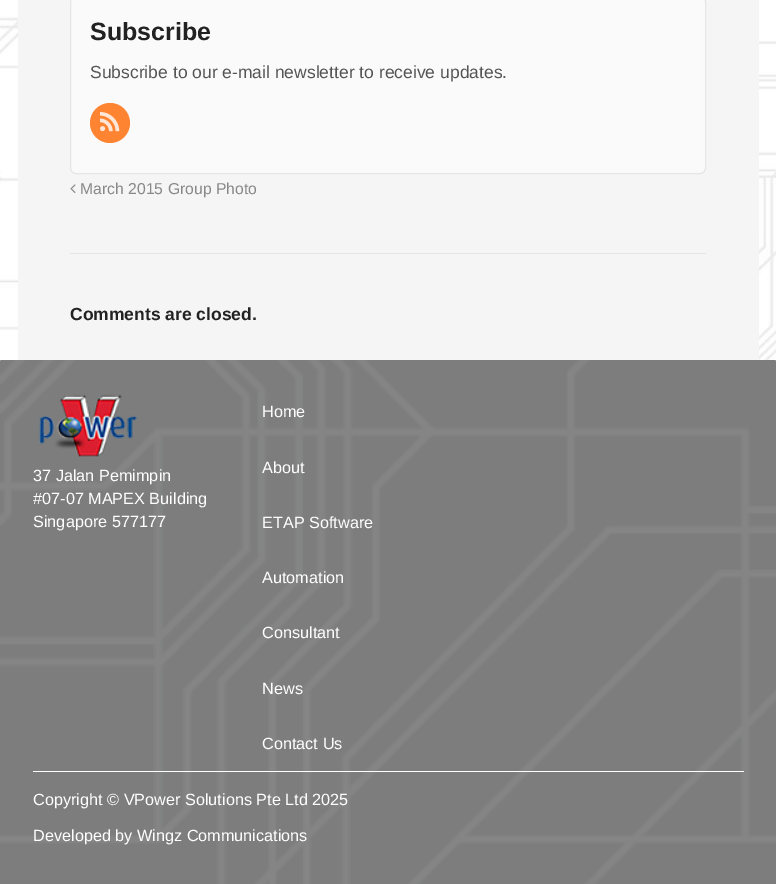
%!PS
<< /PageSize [776 884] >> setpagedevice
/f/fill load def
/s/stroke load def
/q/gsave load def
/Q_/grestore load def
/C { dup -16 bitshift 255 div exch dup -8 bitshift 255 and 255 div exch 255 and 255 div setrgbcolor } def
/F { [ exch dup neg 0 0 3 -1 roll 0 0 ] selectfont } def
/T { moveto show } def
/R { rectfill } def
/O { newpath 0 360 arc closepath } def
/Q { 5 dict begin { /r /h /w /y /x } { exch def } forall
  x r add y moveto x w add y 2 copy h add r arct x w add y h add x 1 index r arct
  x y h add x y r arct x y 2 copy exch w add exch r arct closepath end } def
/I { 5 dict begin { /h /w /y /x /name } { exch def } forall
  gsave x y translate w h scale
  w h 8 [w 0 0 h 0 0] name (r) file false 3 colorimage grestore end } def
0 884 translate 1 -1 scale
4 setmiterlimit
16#FFFFFF C
0 0 776 884 R
(1.rgb) 0 0 776 361 I
16#7D7D7D C
0 360 776 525 1 Q f
(4.rgb) 0 359 776 525 I
16#F5F5F5 C
18 0 741 360 R
16#FAFAFA C
70.5 -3.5 635 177 5.5 Q q f Q_
16#E6E6E6 C
s
/LiberationSans-Bold 25 F
16#222222 C
(Subscribe) 90 40 T
/LiberationSans-Regular 17.5 F
16#555555 C
(Subscribe to our e-mail newsletter to receive updates.) 90 78 T
16#FE8432 C
110 123 20 O f
(2.rgb) 100 112 20 20 I
(3.rgb) 70 184 6 9 I
/LiberationSans-Regular 15.75 F
16#888888 C
(March 2015 Group Photo) 80 194 T
16#E4E4E4 C
70 253 636 1 R
/LiberationSans-Bold 17.5 F
16#222222 C
(Comments are closed.) 70 320 T
(5.rgb) 38 394 100 63 I
/LiberationSans-Regular 16.25 F
16#FFFFFF C
(37 Jalan Pemimpin) 33 481 T
(#07-07 MAPEX Building) 33 504 T
(Singapore 577177) 33 527 T
(Home) 262 417 T
(About) 262 473 T
(ETAP Software) 262 528 T
(Automation) 262 583 T
(Consultant) 262 638 T
(News) 262 694 T
(Contact Us) 262 749 T
33 771 711 1 R
(Copyright © VPower Solutions Pte Ltd 2025) 33 805 T
(Developed by Wingz Communications) 33 841 T
showpage
